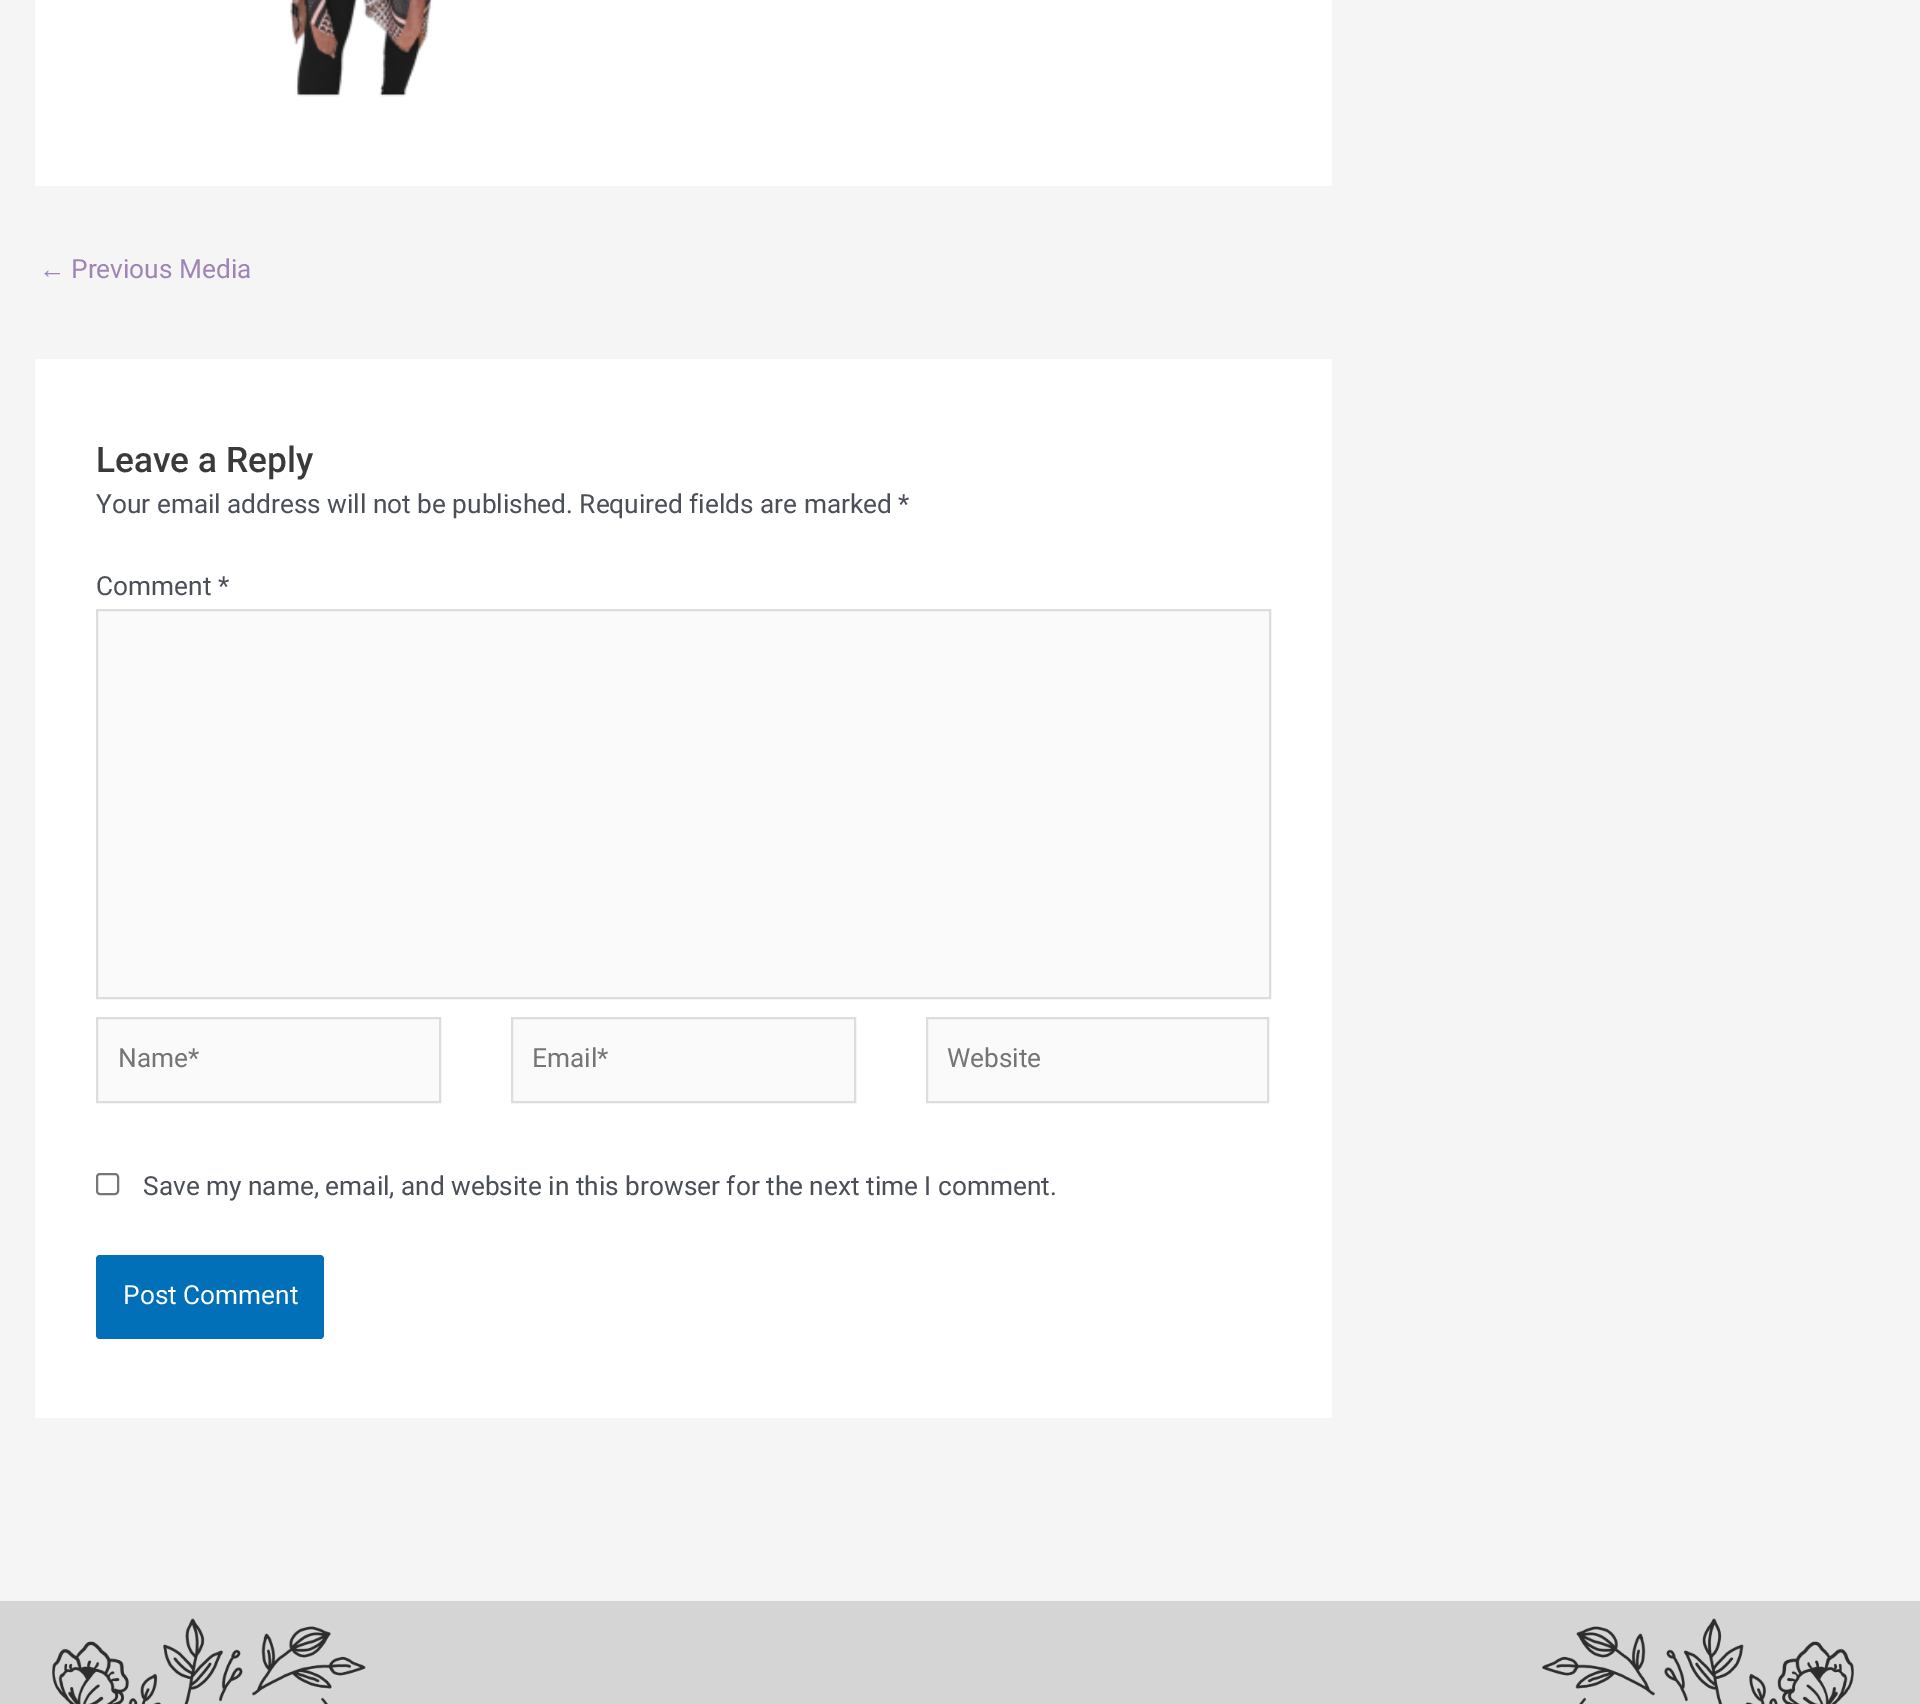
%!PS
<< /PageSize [1920 1704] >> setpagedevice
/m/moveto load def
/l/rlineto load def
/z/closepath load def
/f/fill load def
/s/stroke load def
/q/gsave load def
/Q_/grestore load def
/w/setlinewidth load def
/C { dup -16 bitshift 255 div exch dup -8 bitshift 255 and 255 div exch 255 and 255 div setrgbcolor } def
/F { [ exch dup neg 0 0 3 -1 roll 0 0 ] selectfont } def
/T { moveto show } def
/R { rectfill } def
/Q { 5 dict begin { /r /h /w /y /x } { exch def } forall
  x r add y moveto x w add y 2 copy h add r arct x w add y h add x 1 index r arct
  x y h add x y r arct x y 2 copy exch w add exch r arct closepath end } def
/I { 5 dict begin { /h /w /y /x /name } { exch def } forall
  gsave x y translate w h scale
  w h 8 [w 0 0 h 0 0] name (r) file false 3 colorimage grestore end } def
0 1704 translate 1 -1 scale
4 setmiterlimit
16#F5F5F5 C
0 0 1920 1704 R
16#FFFFFF C
35 0 1297 186 R
(1.rgb) 290 0 143 97 I
/LiberationSans-Regular 26.25 F
16#9F84B5 C
(←) 39 278 T
/Roboto-Regular 26.25 F
(Previous Media) 71 278 T
16#FFFFFF C
35 359 1297 1059 R
/Roboto-Medium 35.25 F
16#3A3A3A C
(Leave a Reply) 96 472 T
/Roboto-Regular 26.25 F
16#4B4F58 C
(Your email address will not be published. Required fields are marked *) 96 513 T
(Comment *) 96 595 T
16#FAFAFA C
97 610 m 1173 0 l 0 388 l -1173 0 l z q f Q_
16#DDDDDD C
2 w
s
16#FAFAFA C
97 1018 m 343 0 l 0 84 l -343 0 l z q f Q_
16#DDDDDD C
s
16#757575 C
(Name*) 118 1067 T
16#FAFAFA C
512 1018 m 343 0 l 0 84 l -343 0 l z q f Q_
16#DDDDDD C
s
16#757575 C
(Email*) 532 1067 T
16#FAFAFA C
927 1018 m 341 0 l 0 84 l -341 0 l z q f Q_
16#DDDDDD C
s
16#757575 C
(Website) 947 1067 T
16#767676 C
97 1174 21 20 3 Q s
16#4B4F58 C
(Save my name, email, and website in this browser for the next time I comment.) 143 1195 T
16#0170B9 C
96 1255 228 84 4 Q f
16#FFFFFF C
(Post Comment) 123 1304 T
16#D5D5D5 C
0 1601 1920 103 R
(2.rgb) 52 1618 314 86 I
(3.rgb) 1542 1618 312 86 I
showpage
